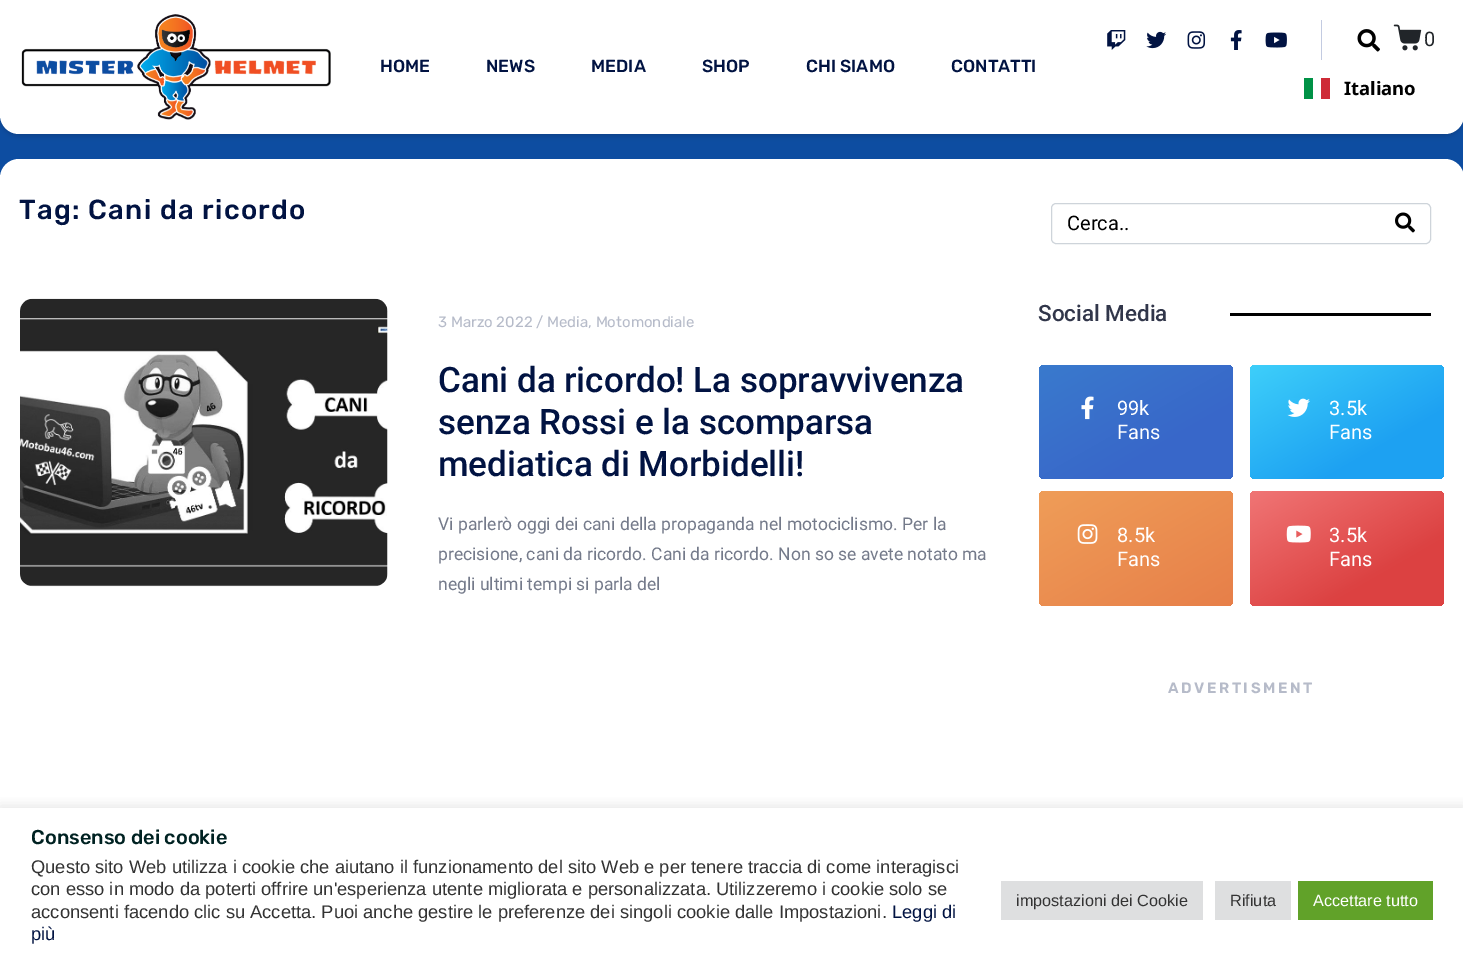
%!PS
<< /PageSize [1463 962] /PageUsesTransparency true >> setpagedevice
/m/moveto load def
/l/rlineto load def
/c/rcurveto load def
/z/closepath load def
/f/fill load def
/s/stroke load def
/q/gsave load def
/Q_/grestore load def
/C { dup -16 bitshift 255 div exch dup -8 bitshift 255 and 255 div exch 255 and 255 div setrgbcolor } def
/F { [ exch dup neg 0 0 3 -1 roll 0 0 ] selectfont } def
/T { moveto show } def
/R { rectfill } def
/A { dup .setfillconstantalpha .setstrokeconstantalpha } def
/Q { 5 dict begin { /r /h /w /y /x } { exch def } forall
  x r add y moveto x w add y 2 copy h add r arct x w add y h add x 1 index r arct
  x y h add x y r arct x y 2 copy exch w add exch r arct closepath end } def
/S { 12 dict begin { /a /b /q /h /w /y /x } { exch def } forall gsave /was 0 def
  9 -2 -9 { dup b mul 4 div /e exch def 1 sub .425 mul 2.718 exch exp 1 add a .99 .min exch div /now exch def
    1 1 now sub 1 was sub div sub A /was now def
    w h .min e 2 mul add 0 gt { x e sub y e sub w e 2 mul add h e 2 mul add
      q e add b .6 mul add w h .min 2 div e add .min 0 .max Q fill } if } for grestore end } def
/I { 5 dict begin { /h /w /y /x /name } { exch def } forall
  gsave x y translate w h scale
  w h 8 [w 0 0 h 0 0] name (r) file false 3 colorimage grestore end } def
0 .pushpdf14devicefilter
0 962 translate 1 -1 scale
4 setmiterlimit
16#0D4DA1 C
0 0 1463 962 R
16#000000 C
0 3 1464 133 19 2.5 .15 S
16#FFFFFF C
0 0 m 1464 0 l 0 115 l 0 10.5 -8.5 19 -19 19 c -1426 0 l -10.5 0 -19 -8.5 -19 -19 c z f
(1.rgb) 21 14 310 106 I
/Rubik-Medium 17.5 F
16#011342 C
(HOME) 380 72 T
(NEWS) 486 72 T
(MEDIA) 591 72 T
(SHOP) 702 72 T
(CHI SIAMO) 806 72 T
(CONTATTI) 951 72 T
16#C3CBE1 C
1321 20 1 40 R
(2.rgb) 1107 30 19 20 I
(3.rgb) 1146 31 21 18 I
(4.rgb) 1187 31 19 18 I
(5.rgb) 1230 30 12 20 I
(6.rgb) 1265 32 22 16 I
(7.rgb) 1357 29 23 23 I
(8.rgb) 1393 24 29 27 I
/Roboto-Regular 20 F
16#212529 C
(0) 1424 46 T
16#009246 C
1304 78 9 21 R
16#CE2B37 C
1321 78 9 21 R
/NotoSans-Bold 18.5 F
16#000000 C
(Italiano) 1344 95 T
16#FFFFFF C
0 159 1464 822 19 Q f
/Rubik-Medium 27.5 F
16#011342 C
19 219 m 1.25 0 (Tag: Cani da ricordo) ashow
(9.rgb) 20 298 368 289 I
/Rubik-Regular 15 F
16#B6BBC9 C
(3 Marzo 2022 / Media, Motomondiale) 438 327 T
/Roboto-Medium 35 F
16#011342 C
(Cani da ricordo! La sopravvivenza) 438 392 T
(senza Rossi e la scomparsa) 438 434 T
(mediatica di Morbidelli!) 438 476 T
/Roboto-Regular 17.5 F
16#747A8A C
(Vi parlerò oggi dei cani della propaganda nel motociclismo. Per la) 438 530 T
(precisione, cani da ricordo. Cani da ricordo. Non so se avete notato ma) 438 560 T
(negli ultimi tempi si parla del) 438 590 T
16#CED4DA C
1051.5 203.5 379 40 4.5 Q s
/Roboto-Regular 20 F
16#000000 C
(Cerca..) 1067 230 T
(10.rgb) 1395 212 20 21 I
/Roboto-Medium 22.5 F
16#31364A C
(Social Media) 1038 321 T
16#000000 C
1230 313 201 3 R
q 1039 365 194 114 5 Q clip newpath
<< /ShadingType 2 /ColorSpace /DeviceRGB /Coords [1087 337 1184 506] /Extend [true true] /Function << /FunctionType 3 /Domain [0 1] /Functions [<< /FunctionType 2 /Domain [0 1] /C0 [.227 .478 .804] /C1 [.22 .404 .788] /N 1 >> << /FunctionType 2 /Domain [0 1] /C0 [.22 .404 .788] /C1 [.22 .404 .788] /N 1 >>] /Bounds [.7] /Encode [0 1 0 1] >> >> shfill Q_
(11.rgb) 1081 396 13 24 I
/Roboto-Regular 20 F
16#FFFFFF C
(99k) 1117 415 T
(Fans) 1117 439 T
q 1250 365 194 114 5 Q clip newpath
<< /ShadingType 2 /ColorSpace /DeviceRGB /Coords [1298 337 1396 506] /Extend [true true] /Function << /FunctionType 3 /Domain [0 1] /Functions [<< /FunctionType 2 /Domain [0 1] /C0 [.243 .812 .98] /C1 [.114 .631 .949] /N 1 >> << /FunctionType 2 /Domain [0 1] /C0 [.114 .631 .949] /C1 [.114 .631 .949] /N 1 >>] /Bounds [.7] /Encode [0 1 0 1] >> >> shfill Q_
(12.rgb) 1287 398 23 19 I
(3.5k) 1329 415 T
(Fans) 1329 439 T
q 1039 491 194 115 5 Q clip newpath
<< /ShadingType 2 /ColorSpace /DeviceRGB /Coords [1087 464 1185 634] /Extend [true true] /Function << /FunctionType 2 /Domain [0 1] /C0 [.937 .616 .345] /C1 [.906 .498 .286] /N 1 >> >> shfill Q_
(13.rgb) 1077 524 21 20 I
(8.5k) 1117 542 T
(Fans) 1117 566 T
q 1250 491 194 115 5 Q clip newpath
<< /ShadingType 2 /ColorSpace /DeviceRGB /Coords [1298 464 1396 634] /Extend [true true] /Function << /FunctionType 3 /Domain [0 1] /Functions [<< /FunctionType 2 /Domain [0 1] /C0 [.941 .459 .459] /C1 [.863 .255 .255] /N 1 >> << /FunctionType 2 /Domain [0 1] /C0 [.863 .255 .255] /C1 [.863 .255 .255] /N 1 >>] /Bounds [.7] /Encode [0 1 0 1] >> >> shfill Q_
(14.rgb) 1286 525 25 18 I
(3.5k) 1329 542 T
(Fans) 1329 566 T
/Rubik-SemiBold 15 F
16#B6BBC9 C
1168 693 m 2.5 0 (ADVERTISMENT) ashow
q
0 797 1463 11 rectclip
16#ACABAB C
0 806 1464 155 0 6 .3 S
Q_
/Rubik-Medium 20 F
16#002222 C
(Consenso dei cookie) 31 844 T
/LiberationSans-Regular 18.33 F
16#333333 C
(Questo sito Web utilizza i cookie che aiutano il funzionamento del sito Web e per tenere traccia di come interagisci) 31 873 T
(con esso in modo da poterti offrire un'esperienza utente migliorata e personalizzata. Utilizzeremo i cookie solo se) 31 895 T
(acconsenti facendo clic su Accetta. Puoi anche gestire le preferenze dei singoli cookie dalle Impostazioni.) 31 918 T
16#011342 C
(Leggi di) 892 918 T
(più) 31 940 T
16#DEDFE0 C
1001 881 202 39 R
/LiberationSans-Regular 16.25 F
16#333333 C
(impostazioni dei Cookie) 1016 906 T
16#DEDFE0 C
1215 881 76 39 R
16#333333 C
(Rifiuta) 1230 906 T
16#61A229 C
1298 881 135 39 R
16#FFFFFF C
(Accettare tutto) 1313 906 T
.poppdf14devicefilter showpage
